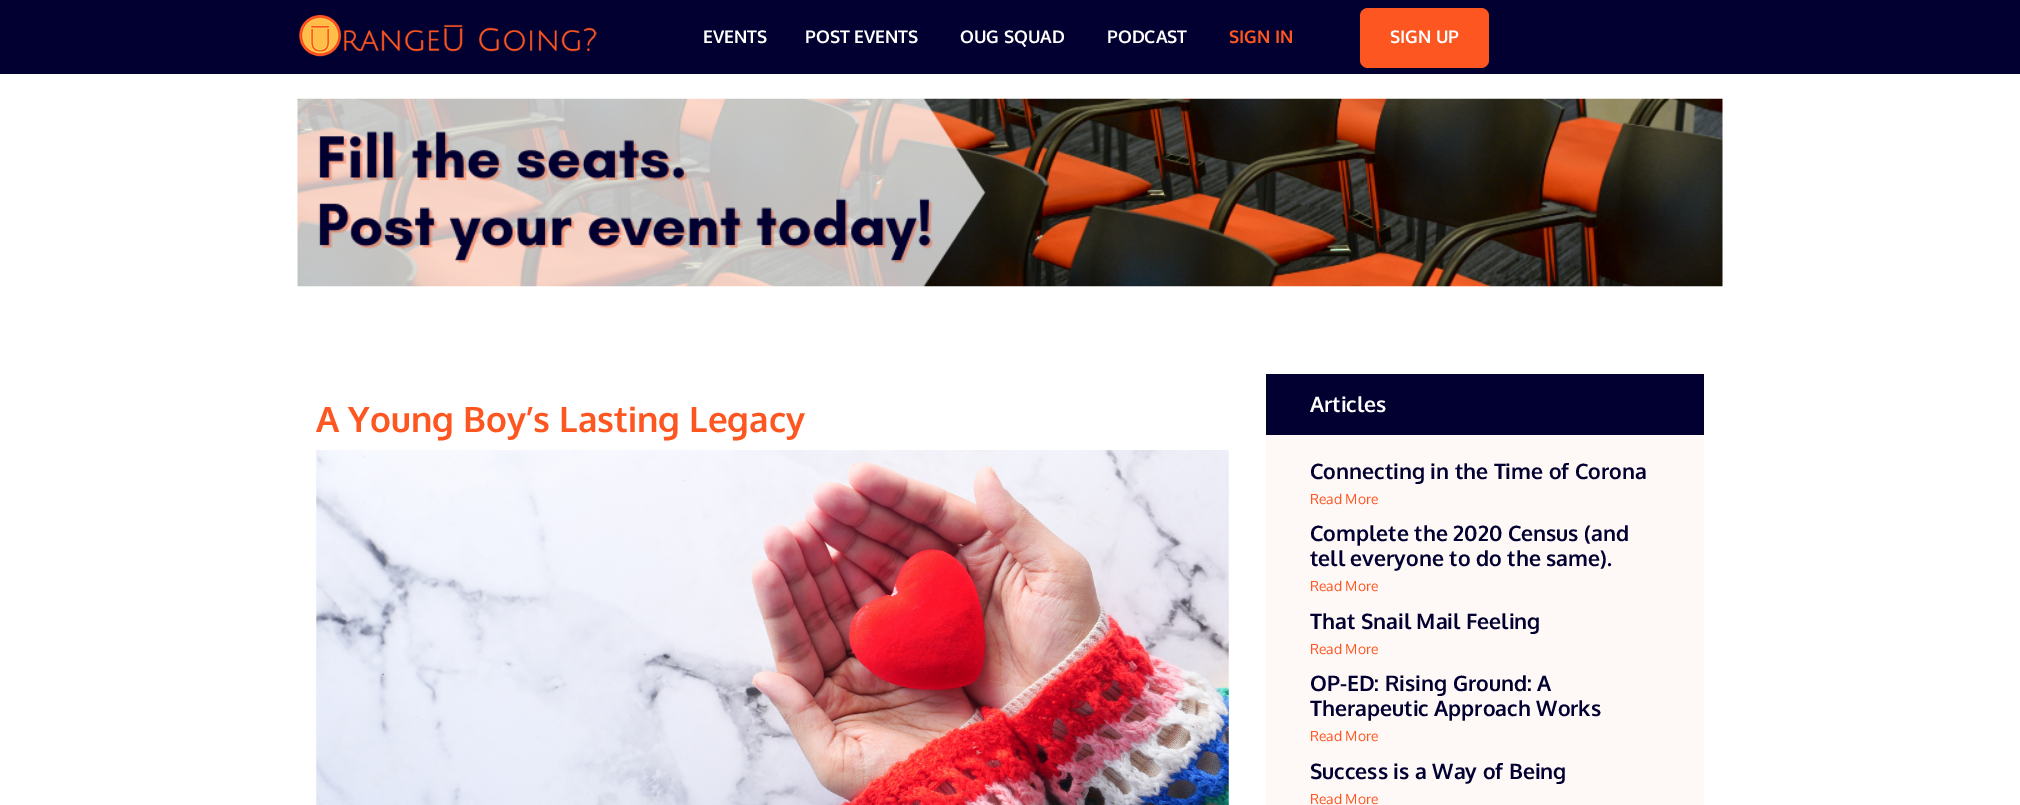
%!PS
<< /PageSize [2020 805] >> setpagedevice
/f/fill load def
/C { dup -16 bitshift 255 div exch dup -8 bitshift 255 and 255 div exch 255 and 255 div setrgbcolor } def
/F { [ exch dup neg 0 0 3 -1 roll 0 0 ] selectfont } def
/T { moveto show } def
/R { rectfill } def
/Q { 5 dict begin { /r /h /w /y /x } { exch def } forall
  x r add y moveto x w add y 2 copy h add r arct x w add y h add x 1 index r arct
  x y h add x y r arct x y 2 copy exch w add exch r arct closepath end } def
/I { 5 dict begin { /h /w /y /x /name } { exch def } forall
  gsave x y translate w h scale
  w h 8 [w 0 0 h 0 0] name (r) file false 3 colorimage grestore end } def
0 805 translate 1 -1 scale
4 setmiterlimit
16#FFFFFF C
0 0 2020 805 R
16#020031 C
0 0 2020 74 R
(1.rgb) 299 15 298 42 I
/Oxygen-Bold 17.5 F
16#FFFFFF C
(EVENTS) 703 43 T
(POST EVENTS) 805 43 T
(OUG SQUAD) 960 43 T
(PODCAST) 1107 43 T
16#FE5621 C
(SIGN IN) 1229 43 T
1360 8 129 60 8 Q f
16#FFFFFF C
(SIGN UP) 1390 43 T
(2.rgb) 297 98 1426 189 I
/Oxygen-Bold 35 F
16#FE5621 C
(A Young Boy’s Lasting Legacy) 316 432 T
(3.rgb) 316 450 913 355 I
16#FEF9F7 C
1266 435 438 370 R
16#020031 C
1266 374 438 61 R
/Oxygen-Bold 21.25 F
16#FFFFFF C
(Articles) 1310 412 T
16#020031 C
(Connecting in the Time of Corona) 1310 479 T
/Oxygen-Regular 13.75 F
16#FE5621 C
(Read More) 1310 504 T
/Oxygen-Bold 21.25 F
16#020031 C
(Complete the 2020 Census \(and) 1310 541 T
(tell everyone to do the same\).) 1310 566 T
/Oxygen-Regular 13.75 F
16#FE5621 C
(Read More) 1310 591 T
/Oxygen-Bold 21.25 F
16#020031 C
(That Snail Mail Feeling) 1310 629 T
/Oxygen-Regular 13.75 F
16#FE5621 C
(Read More) 1310 654 T
/Oxygen-Bold 21.25 F
16#020031 C
(OP-ED: Rising Ground: A) 1310 691 T
(Therapeutic Approach Works) 1310 716 T
/Oxygen-Regular 13.75 F
16#FE5621 C
(Read More) 1310 741 T
/Oxygen-Bold 21.25 F
16#020031 C
(Success is a Way of Being) 1310 779 T
/Oxygen-Regular 13.75 F
16#FE5621 C
(Read More) 1310 804 T
showpage
